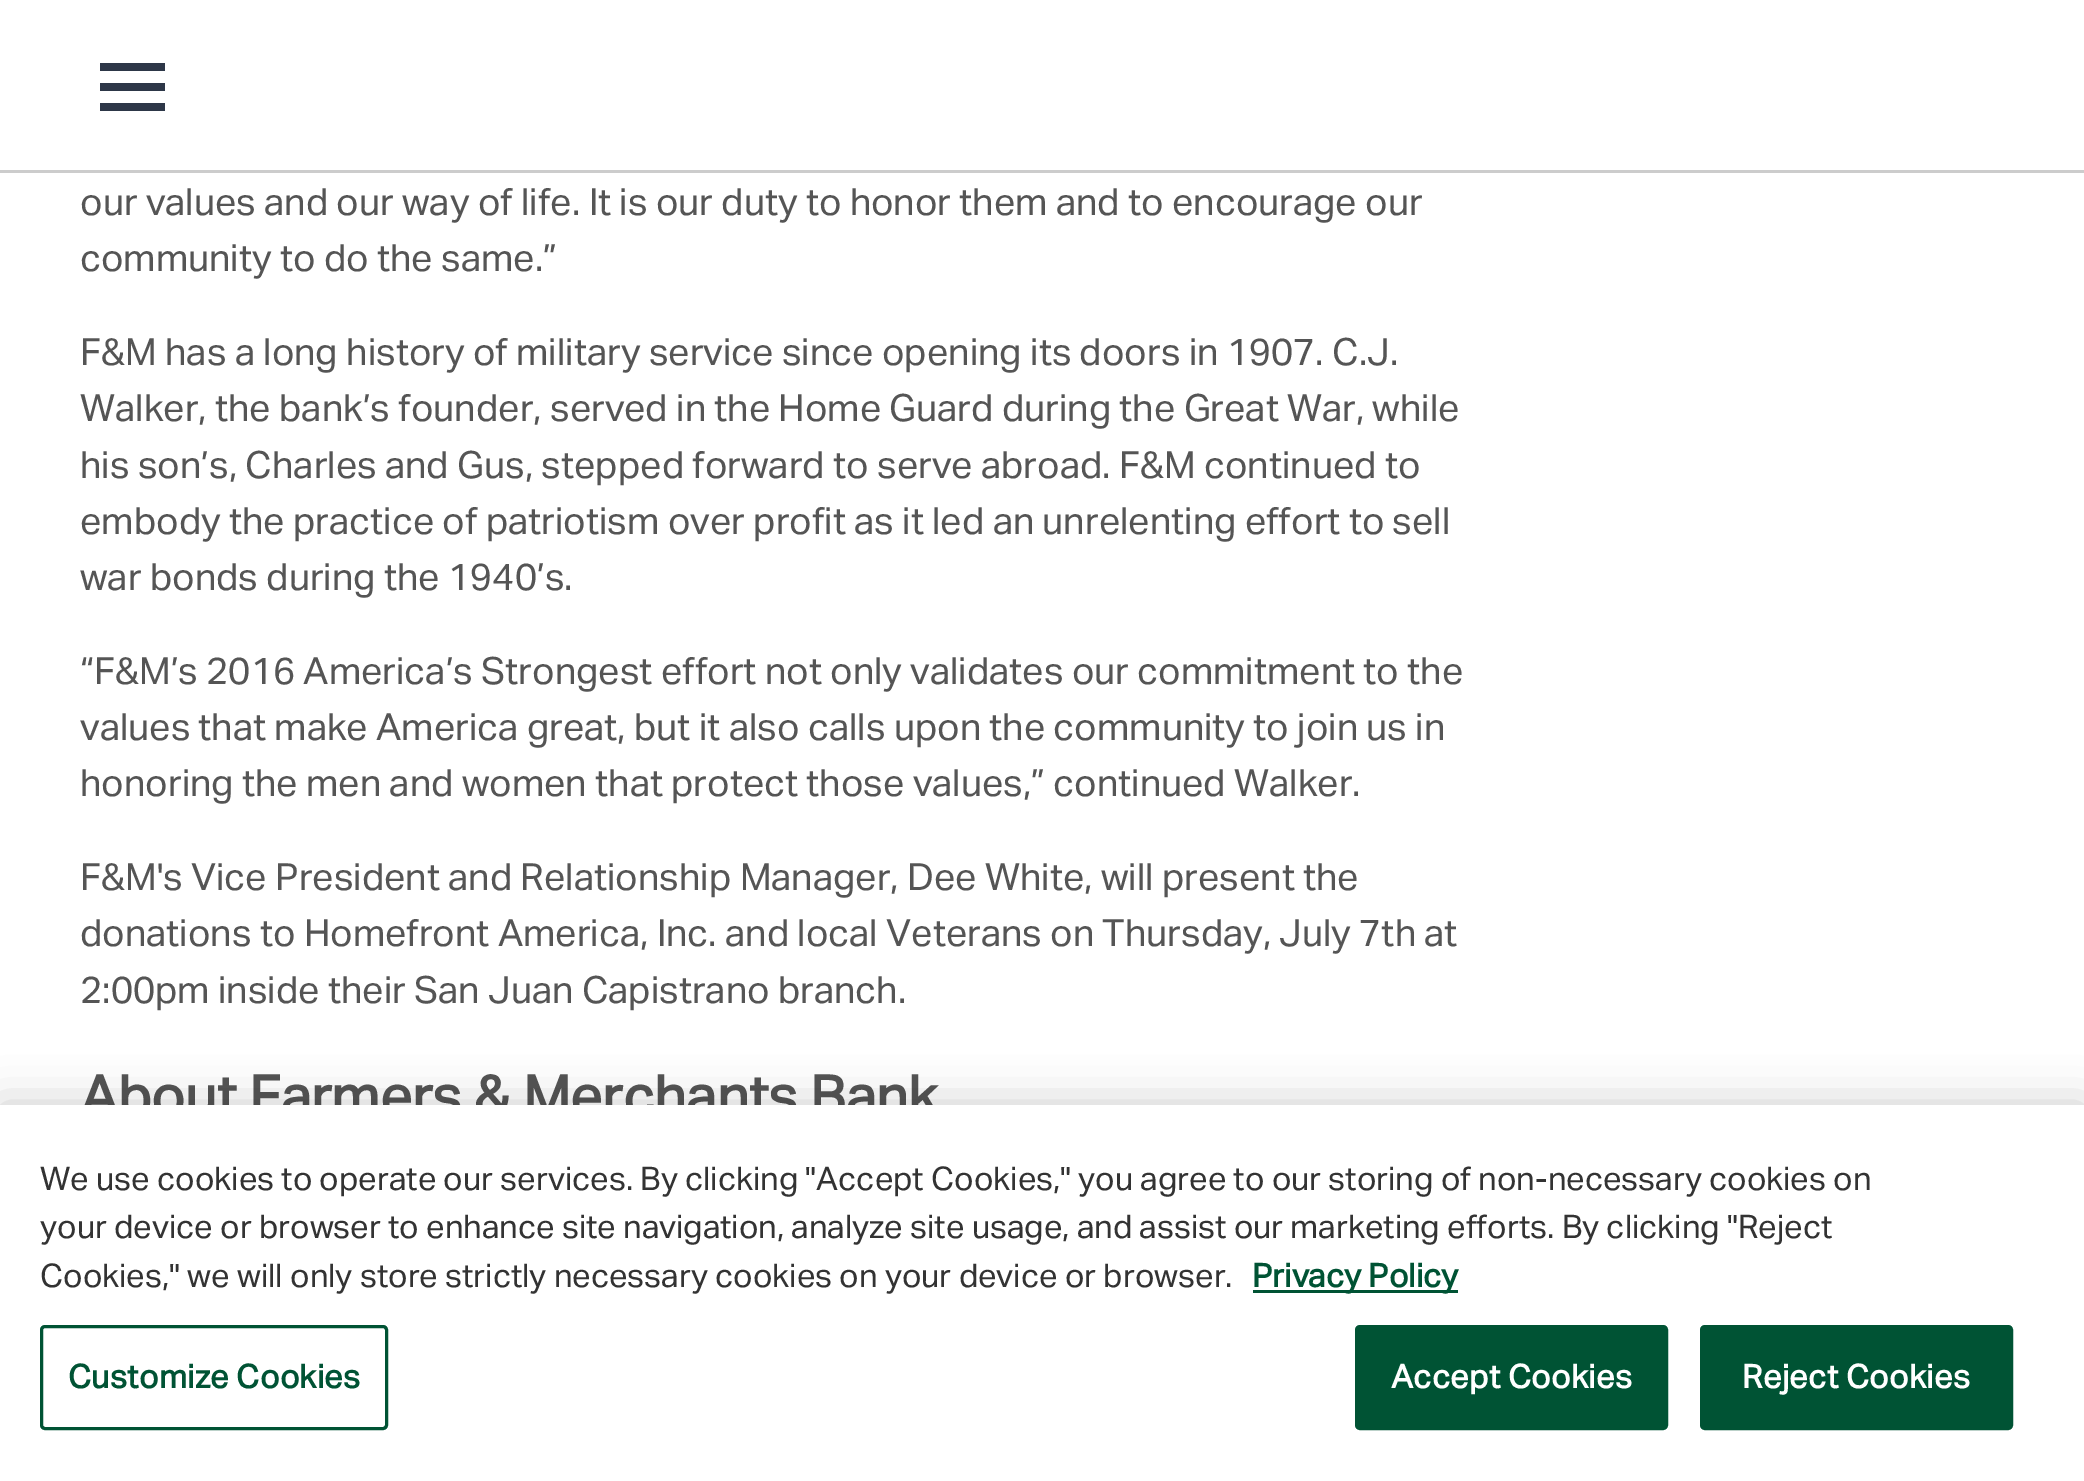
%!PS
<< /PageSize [2084 1481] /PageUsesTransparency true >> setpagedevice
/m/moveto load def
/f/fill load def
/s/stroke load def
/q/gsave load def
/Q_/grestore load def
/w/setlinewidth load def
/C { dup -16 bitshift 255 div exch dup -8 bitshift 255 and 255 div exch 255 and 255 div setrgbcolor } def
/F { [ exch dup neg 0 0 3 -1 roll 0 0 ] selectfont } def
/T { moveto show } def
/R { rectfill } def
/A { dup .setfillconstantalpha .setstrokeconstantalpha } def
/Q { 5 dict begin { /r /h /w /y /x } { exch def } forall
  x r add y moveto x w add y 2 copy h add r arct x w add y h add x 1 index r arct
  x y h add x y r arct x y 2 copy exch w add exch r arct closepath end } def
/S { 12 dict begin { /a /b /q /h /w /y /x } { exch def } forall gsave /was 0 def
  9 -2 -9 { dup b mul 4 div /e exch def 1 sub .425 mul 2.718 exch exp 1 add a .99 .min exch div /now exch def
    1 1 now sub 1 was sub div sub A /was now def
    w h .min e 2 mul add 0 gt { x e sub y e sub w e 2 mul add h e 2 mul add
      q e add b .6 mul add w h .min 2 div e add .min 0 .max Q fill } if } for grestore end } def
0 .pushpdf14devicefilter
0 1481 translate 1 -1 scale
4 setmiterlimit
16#FFFFFF C
0 0 2084 1481 R
16#CCCCCC C
0 170 2084 3 R
16#2D3748 C
100 63 65 8 R
100 83 65 8 R
100 103 65 8 R
/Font-Regular 37.5 F
16#555555 C
(our values and our way of life. It is our duty to honor them and to encourage our) 80 215 T
(community to do the same.”) 80 271 T
(F&M has a long history of military service since opening its doors in 1907. C.J.) 80 365 T
(Walker, the bank’s founder, served in the Home Guard during the Great War, while) 80 421 T
(his son’s, Charles and Gus, stepped forward to serve abroad. F&M continued to) 80 478 T
(embody the practice of patriotism over profit as it led an unrelenting effort to sell) 80 534 T
(war bonds during the 1940’s.) 80 590 T
(“F&M’s 2016 America’s Strongest effort not only validates our commitment to the) 80 684 T
(values that make America great, but it also calls upon the community to join us in) 80 740 T
(honoring the men and women that protect those values,” continued Walker.) 80 796 T
(F&M's Vice President and Relationship Manager, Dee White, will present the) 80 890 T
(donations to Homefront America, Inc. and local Veterans on Thursday, July 7th at) 80 946 T
(2:00pm inside their San Juan Capistrano branch.) 80 1003 T
/Font-Bold 56.25 F
(About Farmers & Merchants Bank) 80 1116 T
16#000000 C
0 1105 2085 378 0 22.5 .2 S
16#FFFFFF C
0 1105 2084 376 R
/Font-Regular 32.52 F
16#333333 C
(We use cookies to operate our services. By clicking "Accept Cookies," you agree to our storing of non-necessary cookies on) 40 1190 T
(your device or browser to enhance site navigation, analyze site usage, and assist our marketing efforts. By clicking "Reject) 40 1238 T
(Cookies," we will only store strictly necessary cookies on your device or browser.) 40 1287 T
16#005334 C
1253 1290 205 3 R
/Font-Bold 32.52 F
(Privacy Policy) 1252 1287 T
3 w
41.5 1326.5 345 102 3.5 Q s
68 1388 m .3 0 (Customize Cookies) ashow
1356.5 1326.5 310 102 3.5 Q q f Q_
s
16#FFFFFF C
1391 1388 m .3 0 (Accept Cookies) ashow
16#005334 C
1701.5 1326.5 310 102 3.5 Q q f Q_
s
16#FFFFFF C
1742 1388 m .3 0 (Reject Cookies) ashow
.poppdf14devicefilter showpage
